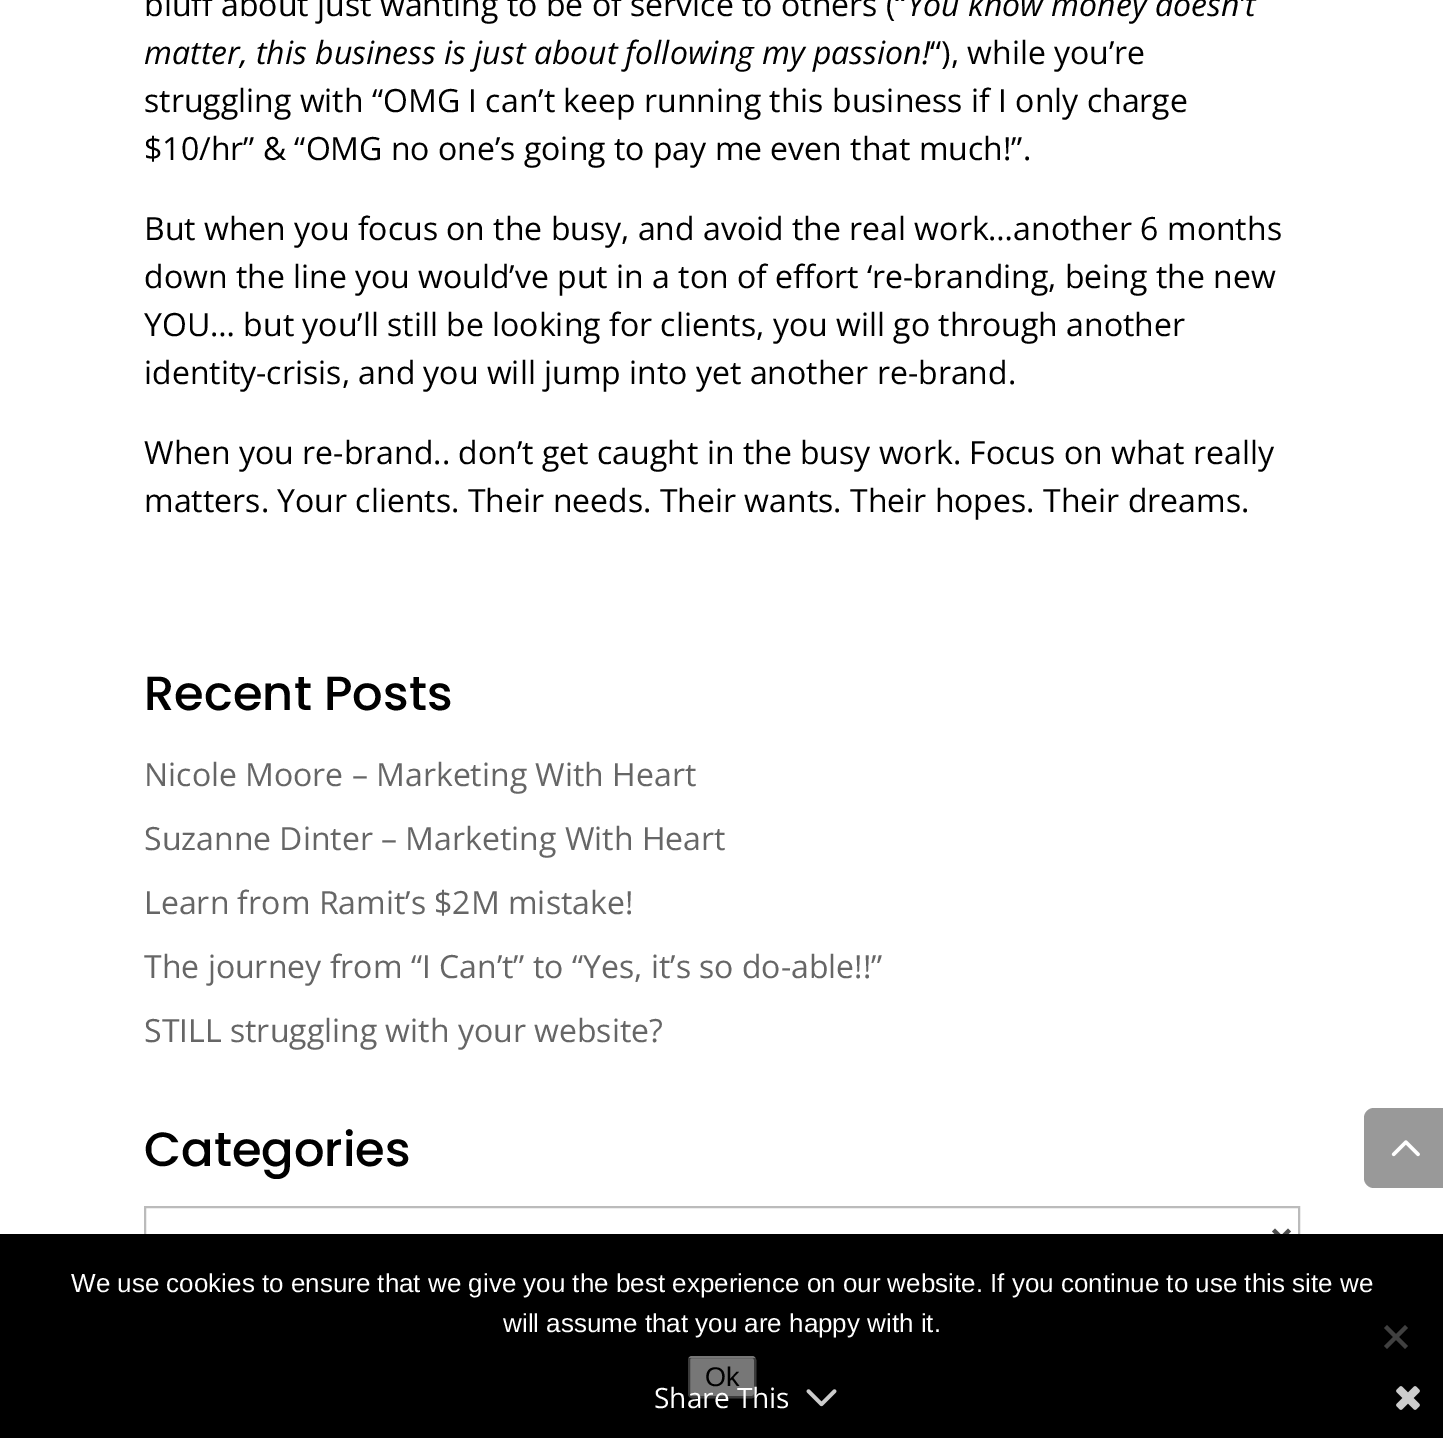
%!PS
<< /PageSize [1443 1438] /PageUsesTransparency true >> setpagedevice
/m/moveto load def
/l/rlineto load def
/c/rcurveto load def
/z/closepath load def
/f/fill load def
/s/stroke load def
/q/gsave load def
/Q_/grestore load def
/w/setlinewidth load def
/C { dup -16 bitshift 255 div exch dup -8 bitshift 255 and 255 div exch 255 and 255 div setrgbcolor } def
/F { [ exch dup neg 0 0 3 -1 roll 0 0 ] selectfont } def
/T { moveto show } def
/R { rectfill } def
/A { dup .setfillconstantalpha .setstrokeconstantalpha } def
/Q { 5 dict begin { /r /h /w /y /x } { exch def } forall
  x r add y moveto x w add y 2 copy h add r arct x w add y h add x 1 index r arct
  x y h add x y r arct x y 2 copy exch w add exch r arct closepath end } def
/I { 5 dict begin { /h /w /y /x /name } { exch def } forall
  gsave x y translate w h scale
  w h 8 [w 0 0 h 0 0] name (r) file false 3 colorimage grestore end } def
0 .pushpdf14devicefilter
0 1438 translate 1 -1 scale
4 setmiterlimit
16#FFFFFF C
0 0 1443 1438 R
/OpenSans-Regular 32 F
16#000000 C
(bluff about just wanting to be of service to others \(“) 144 16 T
/OpenSans-Italic 32 F
(You know money doesn’t) 907 16 T
(matter, this business is just about following my passion!) 144 64 T
/OpenSans-Regular 32 F
(“\), while you’re) 930 64 T
(struggling with “OMG I can’t keep running this business if I only charge) 144 112 T
($10/hr” & “OMG no one’s going to pay me even that much!”.) 144 160 T
(But when you focus on the busy, and avoid the real work…another 6 months) 144 240 T
(down the line you would’ve put in a ton of effort ‘re-branding, being the new) 144 288 T
(YOU… but you’ll still be looking for clients, you will go through another) 144 336 T
(identity-crisis, and you will jump into yet another re-brand.) 144 384 T
(When you re-brand.. don’t get caught in the busy work. Focus on what really) 144 464 T
(matters. Your clients. Their needs. Their wants. Their hopes. Their dreams.) 144 512 T
/Poppins-Medium 48 F
(Recent Posts) 144 710 T
/OpenSans-Regular 32 F
16#666666 C
(Nicole Moore – Marketing With Heart) 144 786 T
(Suzanne Dinter – Marketing With Heart) 144 850 T
(Learn from Ramit’s $2M mistake!) 144 914 T
(The journey from “I Can’t” to “Yes, it’s so do-able!!”) 144 978 T
(STILL struggling with your website?) 144 1042 T
/Poppins-Medium 48 F
16#000000 C
(Categories) 144 1166 T
16#BBBBBB C
2 w
145 1207 1154 54 rectstroke
16#4E4E4E C
4 w
1273.5 1230 m 8 8 l 8 -8 l s
16#999999 C
1374 1108 m 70 0 l 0 80 l -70 0 l -5.5 0 -10 -4.5 -10 -10 c 0 -60 l 0 -5.5 4.5 -10 10 -10 c z f
(1.rgb) 1391 1140 29 17 I
16#000000 C
0 1234 1443 204 R
/LiberationSans-Regular 26 F
16#FFFFFF C
(We use cookies to ensure that we give you the best experience on our website. If you continue to use this site we) 71 1292 T
(will assume that you are happy with it.) 503 1332 T
16#404040 C
1405 1325 m 3 3 l -21 21 l -3 -3 l z f
1384 1328 m 3 -3 l 21 21 l -3 3 l z f
16#EFEFEF C
689 1357 66 40 3 Q q f Q_
16#767676 C
2 w
s
/LiberationSans-Regular 27 F
16#000000 C
(Ok) 705 1386 T
0.5 A
688 1358 68 40 R
/OpenSans-Regular 28 F
1 A
16#FFFFFF C
(Share This) 654 1408 T
(2.rgb) 806 1389 31 18 I
(3.rgb) 1396 1386 24 24 I
.poppdf14devicefilter showpage
